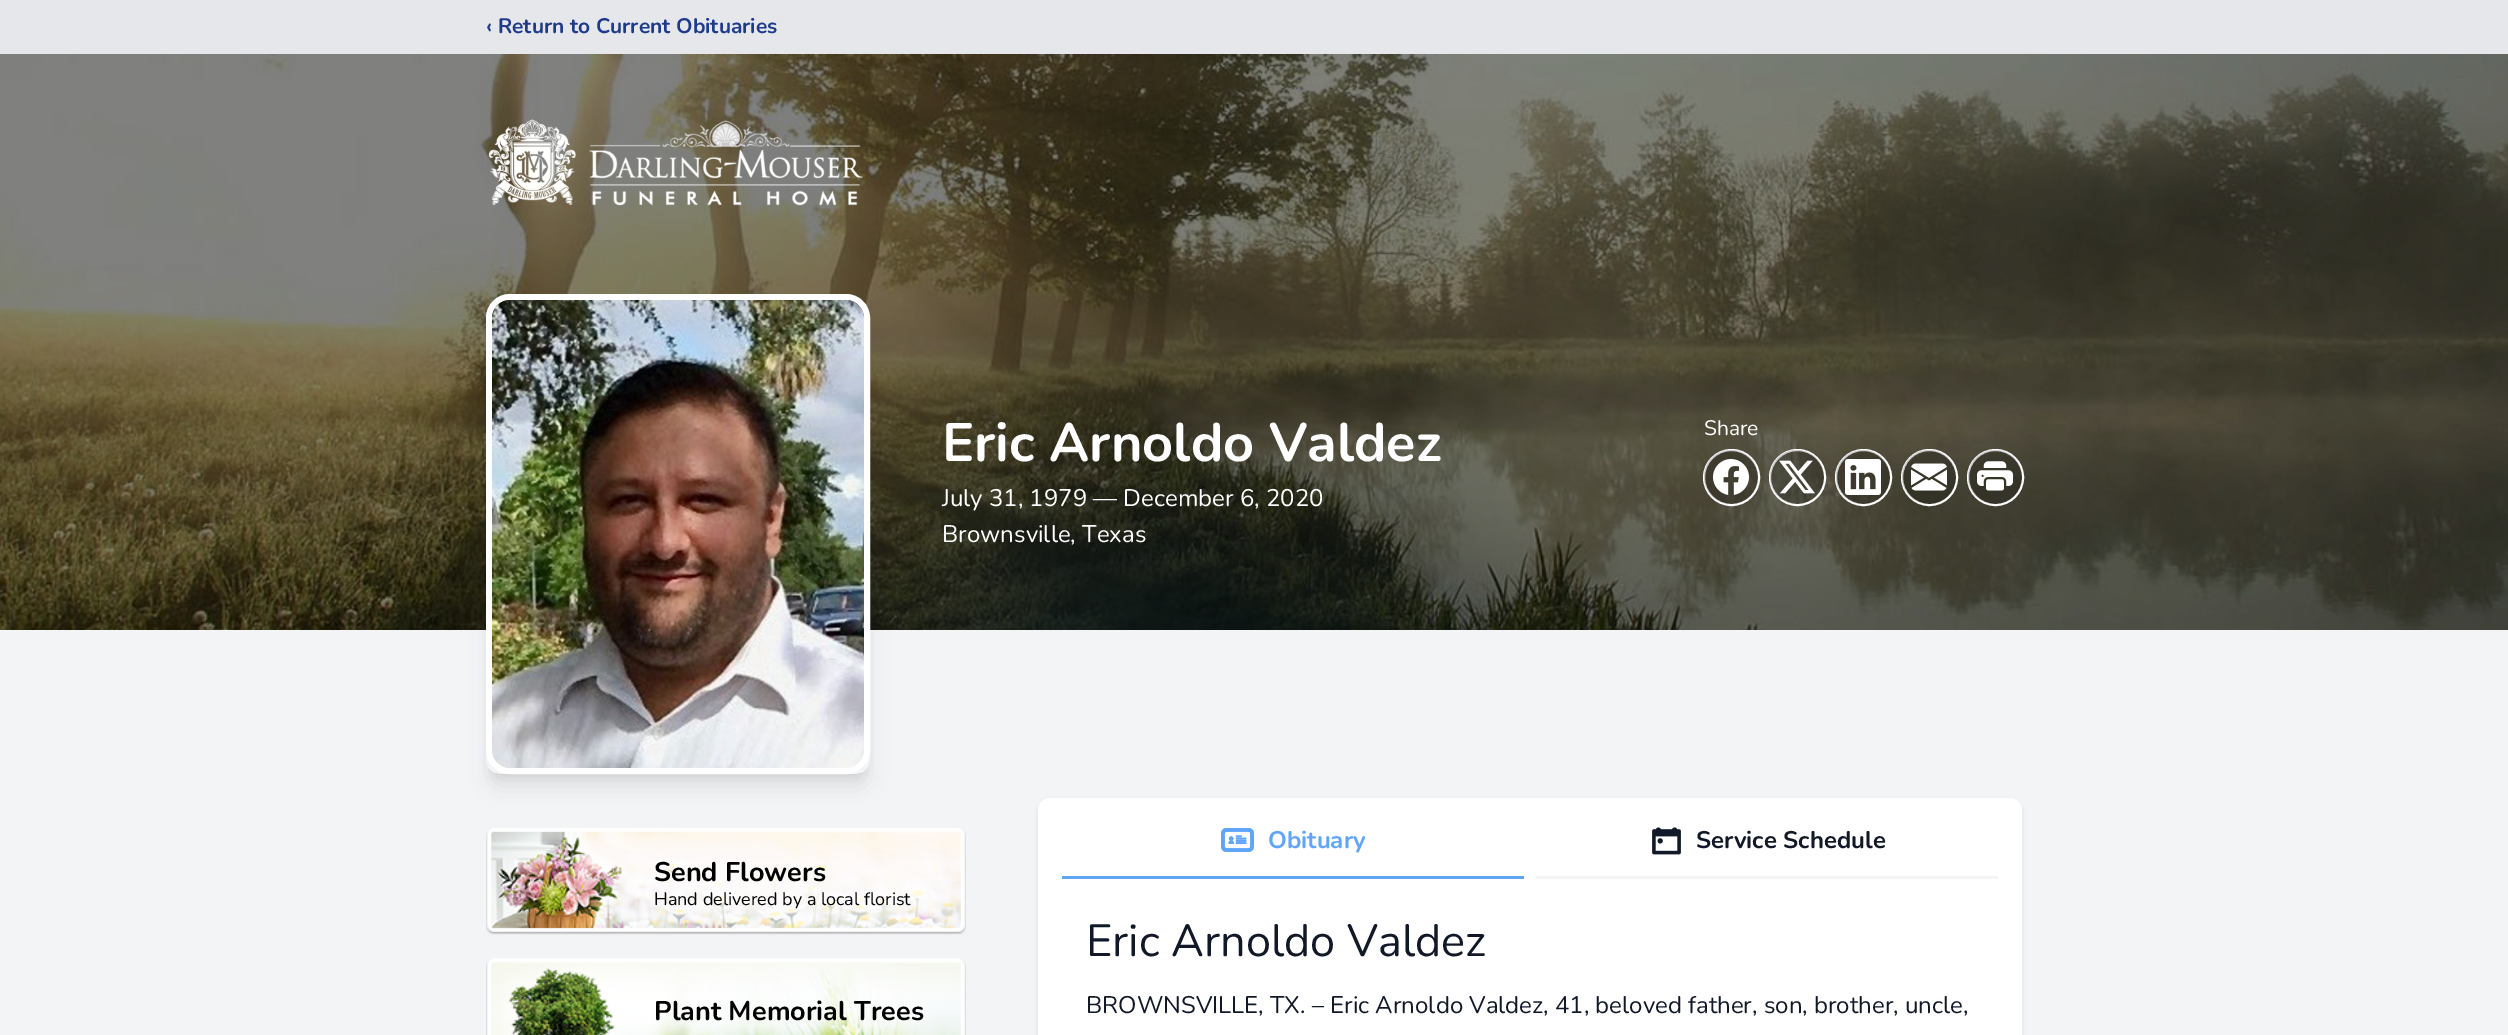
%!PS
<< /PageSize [2508 1035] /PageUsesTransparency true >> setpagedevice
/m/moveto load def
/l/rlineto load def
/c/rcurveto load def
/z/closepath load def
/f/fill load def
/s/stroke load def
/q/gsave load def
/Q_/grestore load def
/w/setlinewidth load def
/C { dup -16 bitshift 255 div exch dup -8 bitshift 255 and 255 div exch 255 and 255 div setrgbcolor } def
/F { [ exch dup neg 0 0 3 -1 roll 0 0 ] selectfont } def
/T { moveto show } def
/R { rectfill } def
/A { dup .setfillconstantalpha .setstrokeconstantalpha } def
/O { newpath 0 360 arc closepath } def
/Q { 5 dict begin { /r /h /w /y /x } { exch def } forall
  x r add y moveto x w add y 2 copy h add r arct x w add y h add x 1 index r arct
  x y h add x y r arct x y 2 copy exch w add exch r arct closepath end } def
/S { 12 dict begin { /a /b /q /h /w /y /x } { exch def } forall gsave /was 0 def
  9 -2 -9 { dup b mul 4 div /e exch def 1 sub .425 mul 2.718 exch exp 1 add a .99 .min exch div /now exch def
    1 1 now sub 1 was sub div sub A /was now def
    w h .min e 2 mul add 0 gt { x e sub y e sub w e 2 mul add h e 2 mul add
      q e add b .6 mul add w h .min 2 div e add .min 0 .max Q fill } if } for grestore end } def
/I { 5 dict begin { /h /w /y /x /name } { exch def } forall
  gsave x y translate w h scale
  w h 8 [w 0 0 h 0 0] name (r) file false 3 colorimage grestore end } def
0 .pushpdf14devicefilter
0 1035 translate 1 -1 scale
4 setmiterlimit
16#F3F4F6 C
0 0 2508 1035 R
16#E5E7EB C
0 0 2508 54 R
/Nunito-Bold 21 F
16#1E3A8A C
(‹ Return to Current Obituaries) 486 33 T
(1.rgb) 0 54 2508 576 I
(2.rgb) 488 119 375 87 I
q
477 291 m 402 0 l 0 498 l -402 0 l z 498 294 m 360 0 l 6.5 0 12 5.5 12 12 c 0 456 l 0 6.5 -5.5 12 -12 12 c -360 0 l -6.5 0 -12 -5.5 -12 -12 c 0 -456 l 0 -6.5 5.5 -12 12 -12 c z eoclip newpath
16#000000 C
492 306 372 468 6 4.5 .1 S
Q_
q
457 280 m 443 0 l 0 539 l -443 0 l z 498 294 m 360 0 l 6.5 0 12 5.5 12 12 c 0 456 l 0 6.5 -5.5 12 -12 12 c -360 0 l -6.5 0 -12 -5.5 -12 -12 c 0 -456 l 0 -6.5 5.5 -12 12 -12 c z eoclip newpath
16#000000 C
491 314 375 471 8 11 .1 S
Q_
16#FFFFFF C
6 w
489 297 378 474 21 Q s
(3.rgb) 492 300 372 468 I
/Nunito-Bold 54 F
(Eric Arnoldo Valdez) 942 461 T
/Nunito-Regular 24 F
(July 31, 1979 — December 6, 2020) 942 506 T
(Brownsville, Texas) 942 542 T
/Nunito-Regular 21 F
(Share) 1704 435 T
2 w
1731.5 477.5 27.5 O s
0.2 A
16#000000 C
1731 477 27 O f
1 A
(4.rgb) 1713 459 36 36 I
16#FFFFFF C
1797.5 477.5 27.5 O s
0.2 A
16#000000 C
1797 477 27 O f
1 A
(5.rgb) 1779 460 36 34 I
16#FFFFFF C
1863.5 477.5 27.5 O s
0.2 A
16#000000 C
1863 477 27 O f
1 A
(6.rgb) 1845 459 36 36 I
16#FFFFFF C
1929.5 477.5 27.5 O s
0.2 A
16#000000 C
1929 477 27 O f
1 A
(7.rgb) 1911 463 36 28 I
16#FFFFFF C
1995.5 477.5 27.5 O s
0.2 A
16#000000 C
1995 477 27 O f
1 A
(8.rgb) 1977 461 36 30 I
(9.rgb) 486 828 480 107 I
/Nunito-Bold 27 F
(Send Flowers) 654 881 T
/Nunito-Regular 18 F
(Hand delivered by a local florist) 654 905 T
(10.rgb) 486 958 480 77 I
/Nunito-Bold 27 F
(Plant Memorial Trees) 654 1020 T
1038 800 984 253 12 2 .1 S
16#FFFFFF C
1038 798 984 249 12 Q f
16#60A5FA C
1062 876 462 3 R
(11.rgb) 1221 828 33 24 I
/Nunito-Bold 24 F
(Obituary) 1268 848 T
16#F3F4F6 C
1536 876 462 3 R
(12.rgb) 1652 827 29 28 I
16#111827 C
(Service Schedule) 1696 848 T
/Nunito-Regular 45 F
(Eric Arnoldo Valdez) 1086 956 T
/Nunito-Regular 24 F
(BROWNSVILLE, TX. – Eric Arnoldo Valdez, 41, beloved father, son, brother, uncle,) 1086 1013 T
.poppdf14devicefilter showpage
